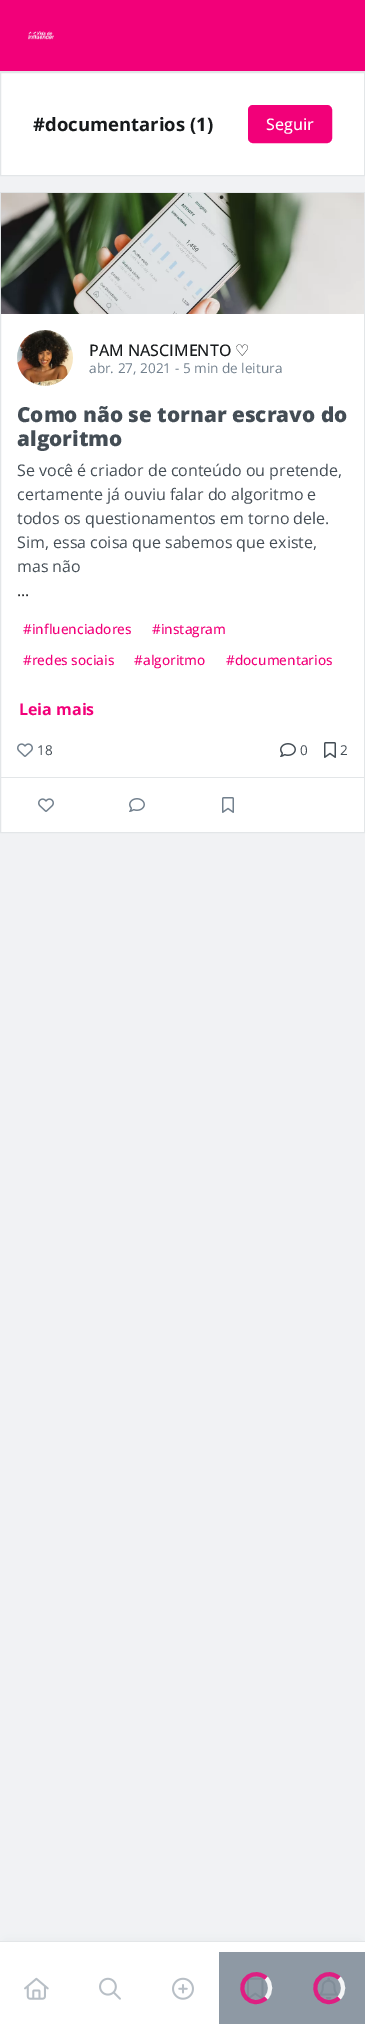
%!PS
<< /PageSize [365 2033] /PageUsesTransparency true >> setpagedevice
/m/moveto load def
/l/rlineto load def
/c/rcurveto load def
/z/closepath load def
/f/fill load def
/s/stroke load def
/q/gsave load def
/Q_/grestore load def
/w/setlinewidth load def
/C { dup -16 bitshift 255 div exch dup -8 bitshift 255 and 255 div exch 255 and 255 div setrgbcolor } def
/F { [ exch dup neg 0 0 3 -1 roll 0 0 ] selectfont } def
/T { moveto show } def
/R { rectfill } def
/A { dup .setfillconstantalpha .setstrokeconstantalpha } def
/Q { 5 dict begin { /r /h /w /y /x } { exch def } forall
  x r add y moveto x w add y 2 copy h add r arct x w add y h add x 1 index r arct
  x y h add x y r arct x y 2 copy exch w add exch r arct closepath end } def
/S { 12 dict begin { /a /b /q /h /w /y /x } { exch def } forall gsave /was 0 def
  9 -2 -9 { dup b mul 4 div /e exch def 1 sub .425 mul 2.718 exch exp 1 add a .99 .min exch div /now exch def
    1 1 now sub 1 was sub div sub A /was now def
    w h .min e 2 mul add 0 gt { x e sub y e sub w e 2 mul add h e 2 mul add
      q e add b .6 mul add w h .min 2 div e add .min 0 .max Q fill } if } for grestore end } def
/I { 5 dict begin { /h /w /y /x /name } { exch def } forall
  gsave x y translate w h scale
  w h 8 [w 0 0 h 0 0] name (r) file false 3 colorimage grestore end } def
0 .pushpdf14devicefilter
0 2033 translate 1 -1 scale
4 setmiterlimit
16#F1F2F4 C
0 0 365 2033 R
16#F20079 C
0 0 365 71 R
16#E3E6E8 C
0 71 365 1 R
(1.rgb) 28 31 26 9 I
16#FFFFFF C
.5 72.5 m 364 0 l 0 103 l -364 0 l z q f Q_
16#E3E6E8 C
s
/OpenSans-Bold 18.5 F
16#171A1C C
(#documentarios \(1\)) 33 131 T
16#F20079 C
249 106 82 36 4 Q q f Q_
2 w
s
/OpenSans-Medium 16 F
16#FFFFFF C
(Seguir) 266 130 T
1 314 363 518 R
16#E3E6E8 C
1 w
.5 192.5 364 640 rectstroke
(2.rgb) 1 193 363 121 I
16#F1F2F4 C
4.5 w
19.5 358.5 m 0 -33.5 50.5 -33.5 50.5 0 c 0 33 -50.5 33 -50.5 0 c z s
(3.rgb) 17 330 56 56 I
16#171A1C C
(PAM NASCIMENTO) 89 356 T
/DejaVuSans-Regular 16 F
(♡) 235 356 T
/OpenSans-Regular 13.6 F
16#72808D C
(abr. 27, 2021 - 5 min de leitura) 89 373 T
/OpenSans-ExtraBold 20.75 F
16#444D55 C
(Como não se tornar escravo do) 17 422 T
(algoritmo) 17 446 T
/OpenSans-Regular 16 F
(Se você é criador de conteúdo ou pretende,) 17 476 T
(certamente já ouviu falar do algoritmo e) 17 500 T
(todos os questionamentos em torno dele.) 17 524 T
(Sim, essa coisa que sabemos que existe,) 17 548 T
(mas não) 17 572 T
16#171A1C C
(...) 17 596 T
/OpenSans-Medium 13.6 F
16#F20079 C
(#influenciadores) 23 634 T
(#instagram) 152 634 T
(#redes sociais) 23 665 T
(#algoritmo) 134 665 T
(#documentarios) 226 665 T
/OpenSans-Bold 16 F
(Leia mais) 19 715 T
(4.rgb) 17 743 16 14 I
/OpenSans-Regular 13.6 F
16#444D55 C
(18) 37 755 T
(5.rgb) 280 743 16 14 I
(0) 300 755 T
(6.rgb) 324 742 12 16 I
(2) 340 755 T
16#E3E6E8 C
1 777 363 1 R
(4.rgb) 38 798 16 14 I
(7.rgb) 129 798 16 14 I
(8.rgb) 222 797 12 16 I
5 1942 355 82 0 6 1 S
16#FFFFFF C
0 1942 365 91 R
16#8E99A4 C
219 1952 146 72 R
16#E3E6E8 C
0 1941 365 1 R
(9.rgb) 24 1977 25 23 I
(10.rgb) 99 1977 22 23 I
(11.rgb) 172 1977 22 23 I
16#F4F5F6 C
4 w
266 1978 m 5.5 5.5 5.5 14.5 0 20 c s
(12.rgb) 247 1977 17 23 I
0.8 A
16#F20079 C
266 1998 m -2.5 2.5 -6.5 4 -10 4 c -16.5 0 -19 -24.5 -2.5 -27.5 c 4.5 -1 9 .5 12.5 3.5 c s
1 A
(13.rgb) 319 1977 20 23 I
16#F4F5F6 C
339 1978 m 5.5 5.5 5.5 14.5 0 20 c s
0.8 A
16#F20079 C
339 1998 m -2.5 2.5 -6.5 4 -10 4 c -16.5 0 -19 -24.5 -2.5 -27.5 c 4.5 -1 9 .5 12.5 3.5 c s
.poppdf14devicefilter showpage
